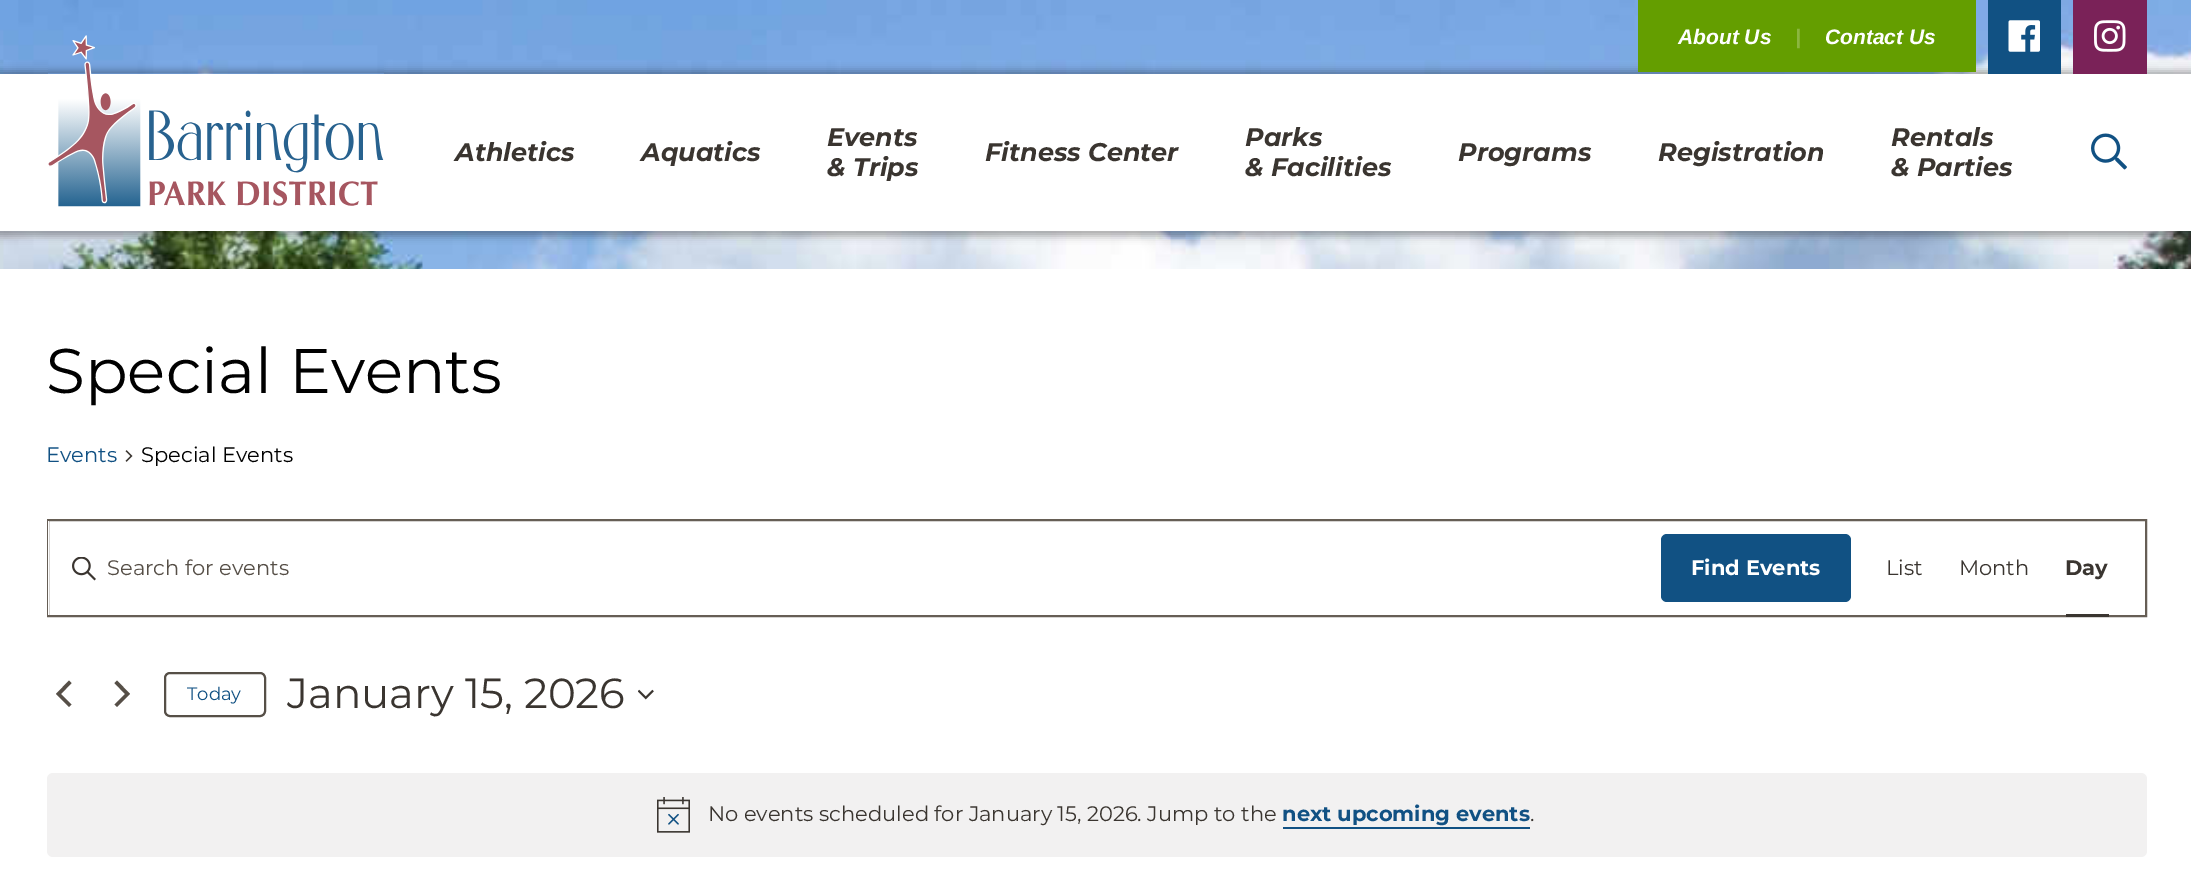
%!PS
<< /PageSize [2191 876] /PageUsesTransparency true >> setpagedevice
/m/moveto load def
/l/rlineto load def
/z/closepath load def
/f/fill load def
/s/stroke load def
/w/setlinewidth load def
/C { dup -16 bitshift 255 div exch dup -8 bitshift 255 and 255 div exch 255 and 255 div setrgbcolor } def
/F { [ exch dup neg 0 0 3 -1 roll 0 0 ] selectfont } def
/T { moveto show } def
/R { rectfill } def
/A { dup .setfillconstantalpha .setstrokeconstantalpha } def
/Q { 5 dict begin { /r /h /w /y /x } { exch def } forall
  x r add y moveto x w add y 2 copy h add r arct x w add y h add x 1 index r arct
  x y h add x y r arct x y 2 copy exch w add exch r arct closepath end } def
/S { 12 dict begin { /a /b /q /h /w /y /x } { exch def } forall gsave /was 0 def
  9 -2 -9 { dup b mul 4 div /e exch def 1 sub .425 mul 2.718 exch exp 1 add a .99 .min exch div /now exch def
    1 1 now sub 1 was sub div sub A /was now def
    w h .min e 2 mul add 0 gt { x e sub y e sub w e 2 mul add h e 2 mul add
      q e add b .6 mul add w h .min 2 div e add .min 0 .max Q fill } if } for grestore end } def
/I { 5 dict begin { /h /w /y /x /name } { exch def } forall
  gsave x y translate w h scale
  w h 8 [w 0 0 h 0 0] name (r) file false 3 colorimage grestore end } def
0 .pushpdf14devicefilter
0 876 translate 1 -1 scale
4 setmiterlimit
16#FFFFFF C
0 0 2191 876 R
(1.rgb) 0 0 2191 269 I
16#000000 C
-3 71 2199 165 0 4 .33 S
16#649E00 C
1638 0 338 72 R
/LiberationSans-BoldItalic 21 F
16#FFFFFF C
(About Us) 1678 44 T
16#8BB640 C
(|) 1795 44 T
16#FFFFFF C
(Contact Us) 1825 44 T
16#115183 C
1988 0 73 74 R
(2.rgb) 2008 20 32 32 I
16#7A2258 C
2073 0 74 74 R
(3.rgb) 2094 20 32 32 I
16#FFFFFF C
0 74 2191 157 R
(4.rgb) 48 35 336 172 I
/Montserrat-BoldItalic 25.5 F
16#3A3530 C
(Athletics) 455 161 T
(Aquatics) 641 161 T
(Events) 827 146 T
(& Trips) 827 176 T
(Fitness Center) 985 161 T
(Parks) 1245 146 T
(& Facilities) 1245 176 T
(Programs) 1458 161 T
(Registration) 1658 161 T
(Rentals) 1891 146 T
(& Parties) 1891 176 T
(5.rgb) 2091 133 36 37 I
/Montserrat-Regular 63 F
16#000000 C
(Special Events) 46 393 T
/Montserrat-Regular 21 F
16#115183 C
(Events) 46 462 T
(6.rgb) 125 450 8 12 I
16#000000 C
(Special Events) 141 462 T
16#665E55 C
2 w
48 520 2098 96 rectstroke
16#FFFFFF C
48 521 1 94 R
(7.rgb) 72 557 24 24 I
16#564F47 C
(Search for events) 107 575 T
16#115183 C
1661 534 190 68 6 Q f
/Montserrat-Bold 21 F
16#FFFFFF C
(Find Events) 1691 575 T
/Montserrat-Regular 21 F
16#3A3530 C
(List) 1886 575 T
(Month) 1959 575 T
/Montserrat-Bold 21 F
(Day) 2065 575 T
2066 614 43 3 R
16#564F47 C
71.5 704.5 m -2.5 2.5 l -13 -13 l 13 -13.5 l 2.5 2.5 l -10.5 11 l z f
114.5 683 m 2.5 -2.5 l 13 13.5 l -13 13 l -2.5 -2.5 l 10.5 -10.5 l z f
165 673 100 43 5 Q s
/Montserrat-Regular 18 F
16#115183 C
(Today) 187 700 T
/Montserrat-Regular 42 F
16#3A3530 C
(January 15, 2026) 287 708 T
(8.rgb) 638 689 16 11 I
16#F2F1F1 C
47 773 2100 84 6 Q f
(9.rgb) 657 797 33 36 I
/Montserrat-Regular 21 F
16#3A3530 C
(No events scheduled for January 15, 2026. Jump to the) 708 821 T
/Montserrat-Bold 21 F
16#115183 C
(next upcoming events) 1282 821 T
1283 827 247 2 R
/Montserrat-Regular 21 F
16#3A3530 C
(.) 1530 821 T
.poppdf14devicefilter showpage
